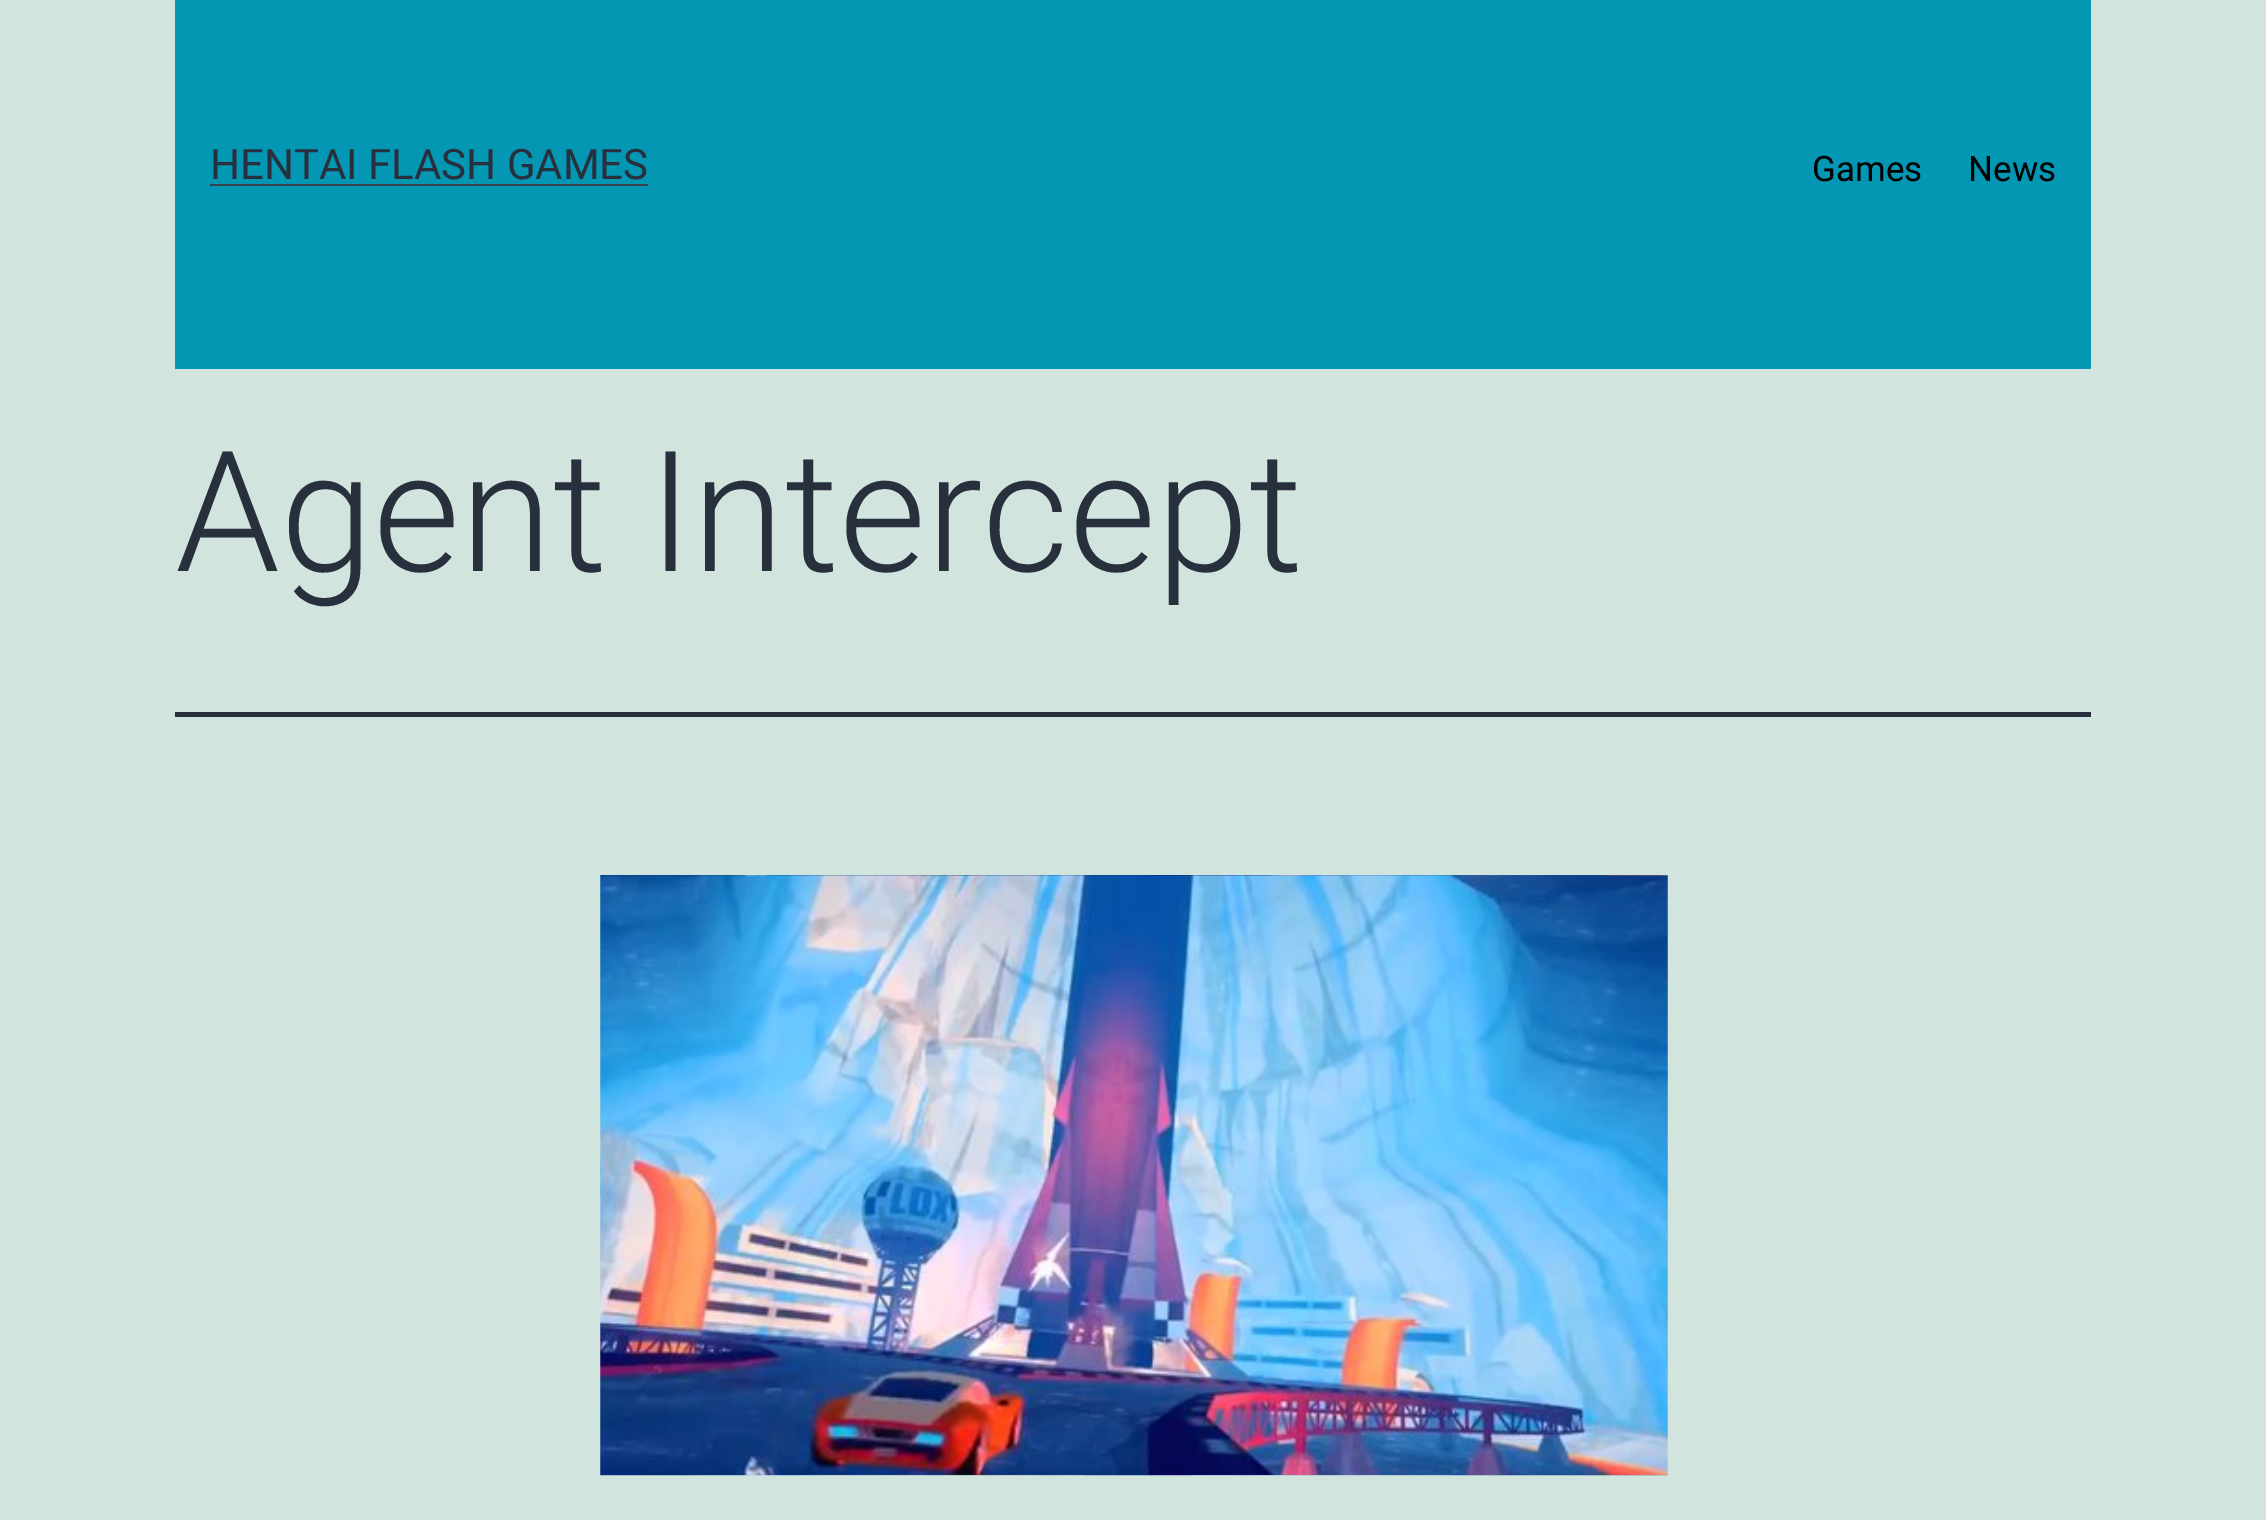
%!PS
<< /PageSize [2266 1520] >> setpagedevice
/C { dup -16 bitshift 255 div exch dup -8 bitshift 255 and 255 div exch 255 and 255 div setrgbcolor } def
/F { [ exch dup neg 0 0 3 -1 roll 0 0 ] selectfont } def
/T { moveto show } def
/R { rectfill } def
/I { 5 dict begin { /h /w /y /x /name } { exch def } forall
  gsave x y translate w h scale
  w h 8 [w 0 0 h 0 0] name (r) file false 3 colorimage grestore end } def
0 1520 translate 1 -1 scale
4 setmiterlimit
16#D1E4DD C
0 0 2266 1520 R
16#0497B4 C
175 0 1916 369 R
/Roboto-Regular 42 F
16#28303D C
(HENTAI FLASH GAMES) 210 179 T
16#39414D C
210 184 438 2 R
/Roboto-Regular 35 F
16#000000 C
(Games) 1812 181 T
(News) 1968 181 T
16#28303D C
175 712 1916 5 R
/Roboto-Light 168 F
(Agent Intercept) 175 571 T
(1.rgb) 600 875 1068 601 I
showpage
